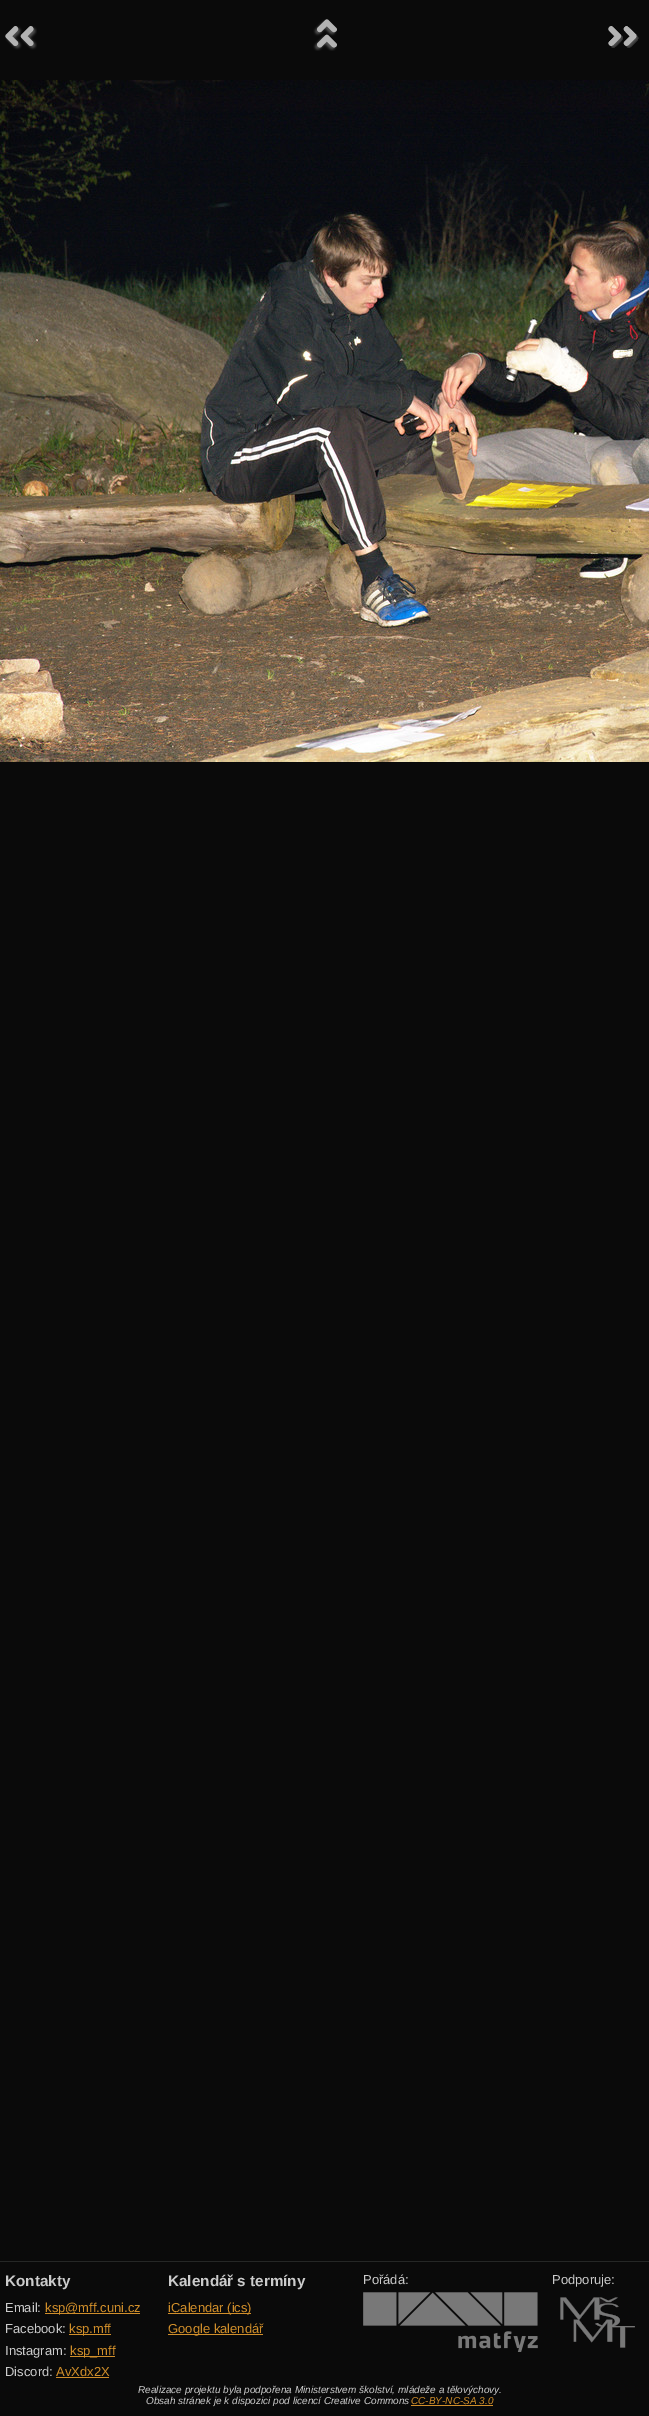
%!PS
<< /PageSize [649 2416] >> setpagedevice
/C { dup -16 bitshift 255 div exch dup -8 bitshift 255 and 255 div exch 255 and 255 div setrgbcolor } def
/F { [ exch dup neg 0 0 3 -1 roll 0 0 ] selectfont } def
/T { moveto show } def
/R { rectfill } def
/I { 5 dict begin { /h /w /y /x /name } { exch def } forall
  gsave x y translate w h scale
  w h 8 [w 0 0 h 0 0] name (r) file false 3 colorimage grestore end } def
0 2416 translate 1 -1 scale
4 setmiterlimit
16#0A0A0A C
0 0 649 2416 R
(1.rgb) 5 26 32 24 I
(2.rgb) 313 19 24 32 I
(3.rgb) 608 26 31 22 I
(4.rgb) 0 80 649 682 I
16#252726 C
0 2261 649 1 R
/LiberationSans-Bold 15.25 F
16#CBCBCB C
(Kontakty) 5 2286 T
/LiberationSans-Regular 13 F
(Email:) 5 2312 T
16#D08E2A C
45 2313 95 1 R
(ksp@mff.cuni.cz) 45 2312 T
16#CBCBCB C
(Facebook:) 5 2333 T
16#D08E2A C
69 2334 42 1 R
(ksp.mff) 69 2333 T
16#CBCBCB C
(Instagram:) 5 2355 T
16#D08E2A C
70 2356 45 1 R
(ksp_mff) 70 2355 T
16#CBCBCB C
(Discord:) 5 2376 T
16#D08E2A C
(AvXdx2X) 56 2376 T
56 2377 53 1 R
/LiberationSans-Bold 15.25 F
16#CBCBCB C
(Kalendář s termíny) 168 2286 T
16#D08E2A C
168 2313 83 1 R
/LiberationSans-Regular 13 F
(iCalendar \(ics\)) 168 2312 T
168 2334 95 1 R
(Google kalendář) 168 2333 T
16#CBCBCB C
(Pořádá:) 363 2284 T
(5.rgb) 363 2292 175 60 I
(Podporuje:) 552 2284 T
(6.rgb) 560 2297 75 51 I
/LiberationSans-Italic 10 F
(Realizace projektu byla podpořena Ministerstvem školství, mládeže a tělovýchovy.) 138 2393 T
(Obsah stránek je k dispozici pod licencí Creative Commons) 146 2404 T
16#D08E2A C
(CC-BY-NC-SA 3.0) 411 2404 T
411 2405 82 1 R
showpage
